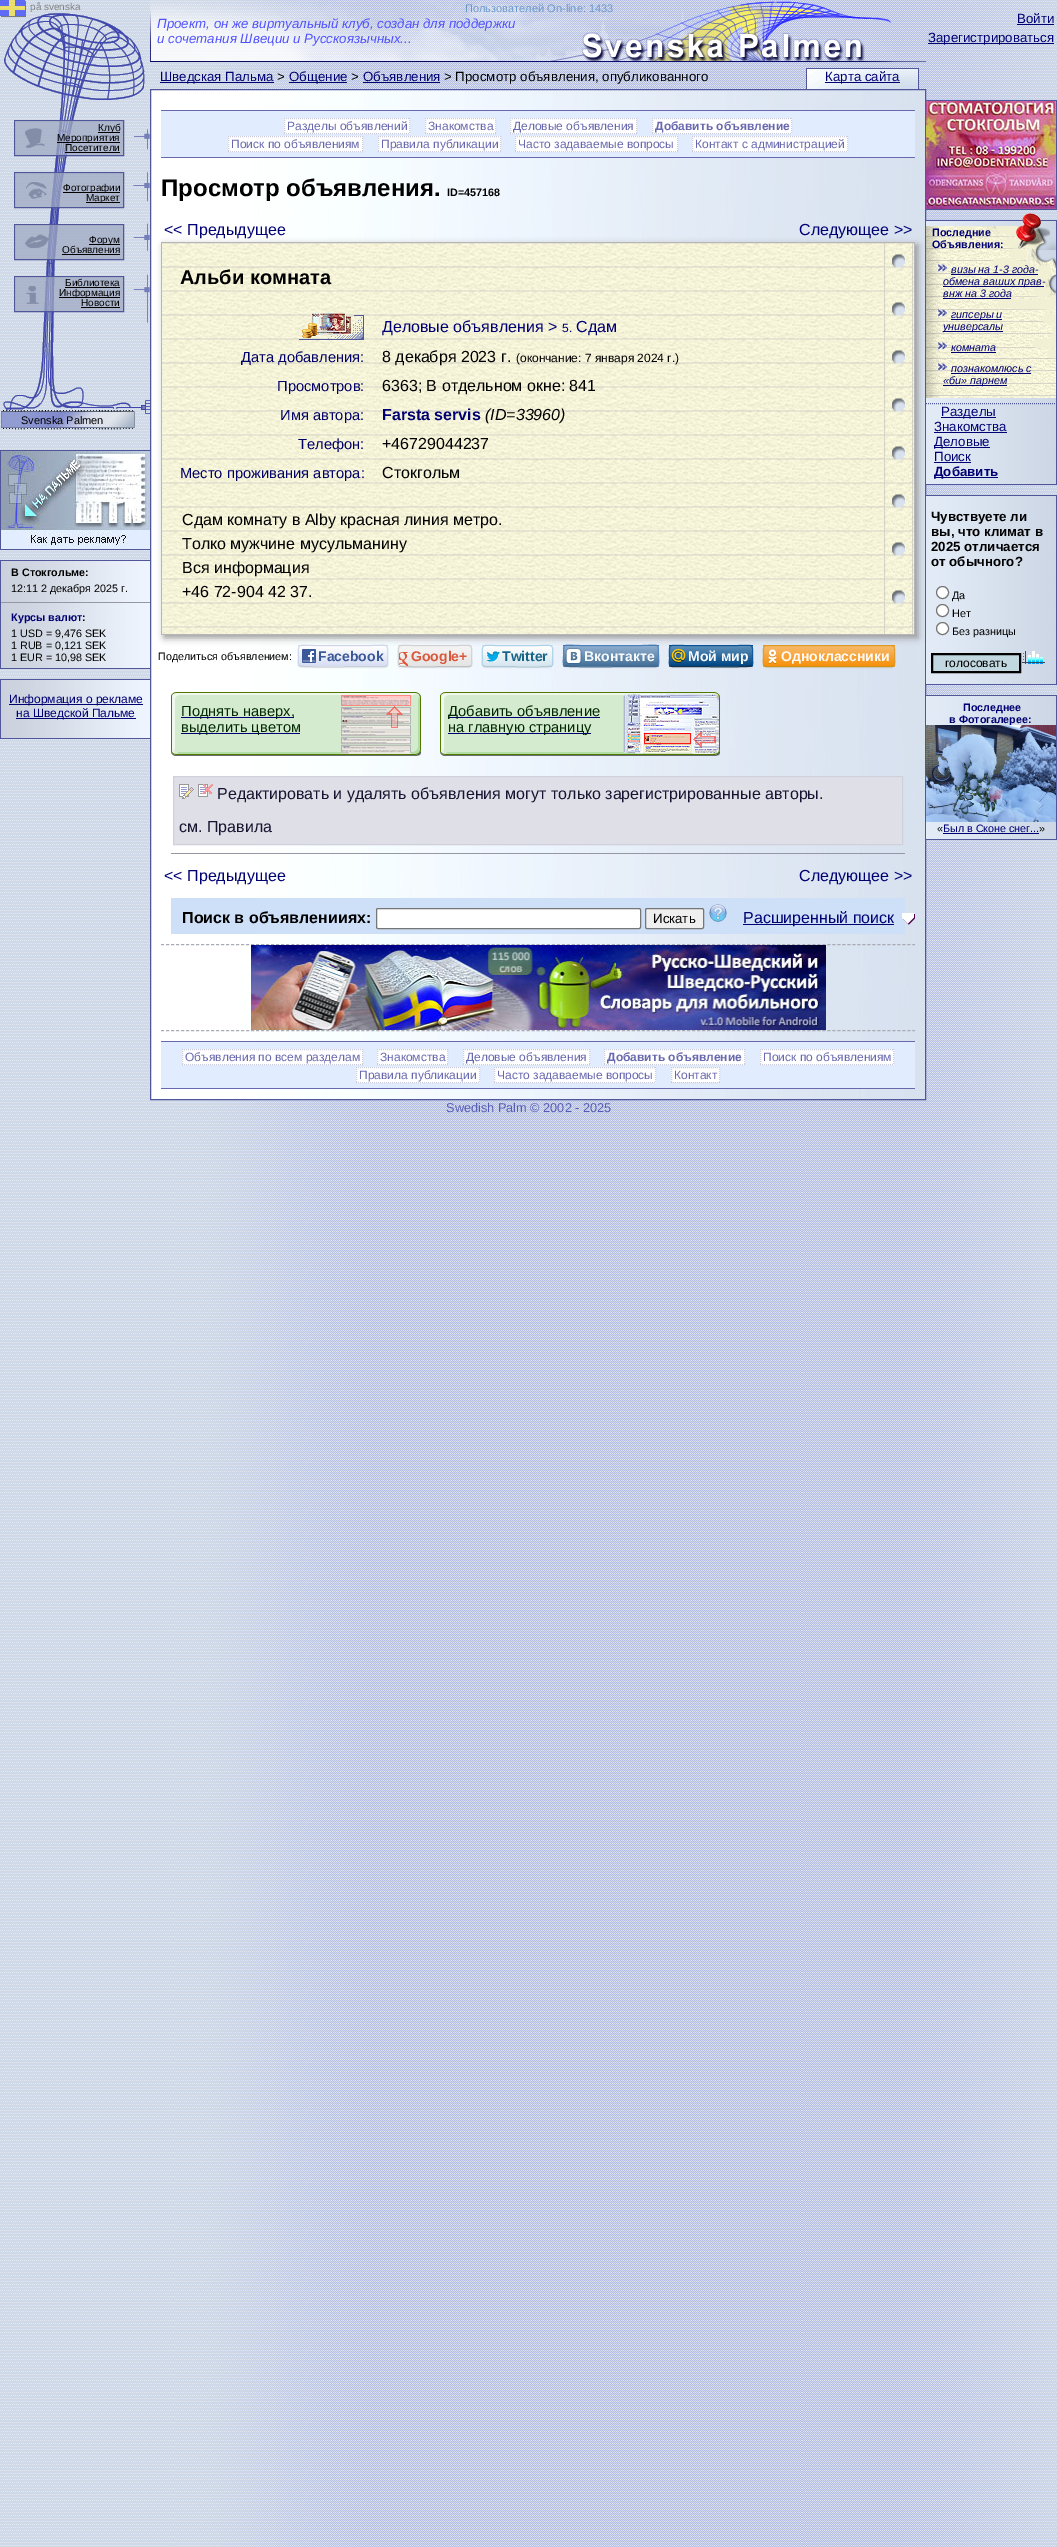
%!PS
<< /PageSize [1057 2547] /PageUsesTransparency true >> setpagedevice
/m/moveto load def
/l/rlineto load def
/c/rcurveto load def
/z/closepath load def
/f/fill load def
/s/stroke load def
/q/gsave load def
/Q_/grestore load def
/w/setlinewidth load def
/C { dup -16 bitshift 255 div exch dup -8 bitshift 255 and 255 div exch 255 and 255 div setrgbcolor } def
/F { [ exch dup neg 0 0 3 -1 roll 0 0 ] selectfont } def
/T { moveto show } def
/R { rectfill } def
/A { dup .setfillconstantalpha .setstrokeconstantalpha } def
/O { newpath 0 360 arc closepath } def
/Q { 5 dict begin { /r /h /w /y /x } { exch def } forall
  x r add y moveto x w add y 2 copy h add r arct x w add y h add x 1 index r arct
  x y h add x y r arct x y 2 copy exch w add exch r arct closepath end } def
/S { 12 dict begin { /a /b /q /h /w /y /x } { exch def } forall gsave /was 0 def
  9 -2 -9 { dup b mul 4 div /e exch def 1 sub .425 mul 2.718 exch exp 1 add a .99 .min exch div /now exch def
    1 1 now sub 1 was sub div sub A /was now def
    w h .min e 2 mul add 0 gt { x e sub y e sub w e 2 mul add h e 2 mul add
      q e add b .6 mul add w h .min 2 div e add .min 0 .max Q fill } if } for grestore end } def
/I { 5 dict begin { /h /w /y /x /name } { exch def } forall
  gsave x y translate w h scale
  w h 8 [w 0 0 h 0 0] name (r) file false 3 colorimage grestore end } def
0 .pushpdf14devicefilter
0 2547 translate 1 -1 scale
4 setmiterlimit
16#FFFFFF C
0 0 1057 2547 R
(1.rgb) 0 0 1057 2547 I
(3.rgb) 1 13 149 417 I
(2.rgb) 0 0 26 17 I
/LiberationSans-Regular 10 F
16#808080 C
(på svenska) 30 10 T
16#50569A C
14.5 120.5 109 35 rectstroke
0.75 A
16#9FA9C2 C
15 121 108 34 R
1 A
(4.rgb) 25 128 20 20 I
16#000000 C
98 132 22 1 R
(Клуб) 98 131 T
57 142 63 1 R
(Мероприятия) 57 141 T
(Посетители) 65 151 T
65 152 55 1 R
16#50569A C
14.5 172.5 109 35 rectstroke
0.75 A
16#9FA9C2 C
15 173 108 34 R
1 A
(5.rgb) 26 182 21 17 I
16#000000 C
63 192 57 1 R
(Фотографии) 63 191 T
86 202 34 1 R
(Маркет) 86 201 T
16#50569A C
14.5 224.5 109 35 rectstroke
0.75 A
16#9FA9C2 C
15 225 108 34 R
1 A
(6.rgb) 25 234 24 14 I
16#000000 C
89 244 31 1 R
(Форум) 89 243 T
(Объявления) 62 253 T
62 254 58 1 R
16#50569A C
14.5 276.5 109 35 rectstroke
0.75 A
16#9FA9C2 C
15 277 108 34 R
1 A
(7.rgb) 26 286 13 18 I
16#000000 C
(Библиотека) 65 286 T
65 287 55 1 R
59 297 61 1 R
(Информация) 59 296 T
(Новости) 81 306 T
81 307 39 1 R
/LiberationSans-Regular 11 F
(Svenska Palmen) 21 424 T
16#50569A C
0 450 151 1 R
0 549 151 1 R
0 450 1 100 R
(8.rgb) 1 451 149 98 I
(9.rgb) 1 561 149 107 I
0 560 151 1 R
0 668 151 1 R
0 560 1 109 R
/LiberationSans-Bold 10.75 F
16#000000 C
(В Стокгольме:) 11 576 T
/LiberationSans-Regular 10.75 F
(12:11 2 декабря 2025 г.) 11 592 T
16#9696A5 C
1 602 150 1 R
/LiberationSans-Bold 10.75 F
16#000072 C
(Курсы валют) 11 621 T
16#000000 C
(:) 82 621 T
/LiberationSans-Regular 10.75 F
(1 USD = 9,476 SEK) 11 637 T
(1 RUB = 0,121 SEK) 11 649 T
(1 EUR = 10,98 SEK) 11 661 T
(10.rgb) 1 680 149 58 I
16#50569A C
0 679 151 1 R
0 738 151 1 R
0 679 1 60 R
16#000072 C
9 704 134 1 R
/LiberationSans-Regular 12 F
(Информация о рекламе) 9 703 T
16 718 120 1 R
(на Шведской Пальме) 16 717 T
(11.rgb) 150 0 776 62 I
(12.rgb) 487 1 405 61 I
/LiberationSans-Regular 11 F
16#6997CA C
(Пользователей On-line: 1433) 465 12 T
/LiberationSans-Italic 13.3 F
16#4F51FD C
(Проект, он же виртуальный клуб, создан для поддержки) 157 28 T
(и сочетания Швеции и Русскоязычных...) 157 43 T
16#000072 C
160 82 114 1 R
/LiberationSans-Regular 13.3 F
(Шведская Пальма) 160 81 T
16#000000 C
(>) 277 81 T
16#000072 C
289 82 58 1 R
(Общение) 289 81 T
16#000000 C
(>) 351 81 T
16#000072 C
(Объявления) 363 81 T
363 82 77 1 R
16#000000 C
(> Просмотр объявления, опубликованного) 444 81 T
(13.rgb) 151 90 774 1009 I
16#50569A C
150.5 89.5 775 1010 rectstroke
16#E2ECFF C
161 111 754 46 R
16#6868AE C
161 110 754 1 R
161 157 754 1 R
16#FFFFFF C
284 118 126 16 R
16#CBCBD9 C
[1 1] 0 setdash
284 118.5 m 126 0 l s
409.5 118 m 0 16 l s
284 133.5 m 126 0 l s
284.5 118 m 0 16 l s
/LiberationSans-Regular 12 F
16#6868AE C
(Разделы объявлений) 287 130 T
16#FFFFFF C
425 118 71 16 R
16#CBCBD9 C
425 118.5 m 71 0 l s
495.5 118 m 0 16 l s
425 133.5 m 71 0 l s
425.5 118 m 0 16 l s
16#6868AE C
(Знакомства) 428 130 T
16#FFFFFF C
510 118 127 16 R
16#CBCBD9 C
510 118.5 m 127 0 l s
636.5 118 m 0 16 l s
510 133.5 m 127 0 l s
510.5 118 m 0 16 l s
16#6868AE C
(Деловые объявления) 513 130 T
16#FFFFFF C
652 118 140 16 R
16#CBCBD9 C
652 118.5 m 140 0 l s
791.5 118 m 0 16 l s
652 133.5 m 140 0 l s
652.5 118 m 0 16 l s
/LiberationSans-Bold 12 F
16#6868AE C
(Добавить объявление) 655 130 T
16#FFFFFF C
228 136 135 16 R
16#CBCBD9 C
228 136.5 m 135 0 l s
362.5 136 m 0 16 l s
228 151.5 m 135 0 l s
228.5 136 m 0 16 l s
/LiberationSans-Regular 12 F
16#6868AE C
(Поиск по объявлениям) 231 148 T
16#FFFFFF C
378 136 123 16 R
16#CBCBD9 C
378 136.5 m 123 0 l s
500.5 136 m 0 16 l s
378 151.5 m 123 0 l s
378.5 136 m 0 16 l s
16#6868AE C
(Правила публикации) 381 148 T
16#FFFFFF C
515 136 163 16 R
16#CBCBD9 C
515 136.5 m 163 0 l s
677.5 136 m 0 16 l s
515 151.5 m 163 0 l s
515.5 136 m 0 16 l s
16#6868AE C
(Часто задаваемые вопросы) 518 148 T
16#FFFFFF C
692 136 156 16 R
16#CBCBD9 C
692 136.5 m 156 0 l s
847.5 136 m 0 16 l s
692 151.5 m 156 0 l s
692.5 136 m 0 16 l s
16#6868AE C
(Контакт с администрацией) 695 148 T
/LiberationSans-Bold 24 F
16#000000 C
(Просмотр объявления.) 161 196 T
/LiberationSans-Bold 10.75 F
(ID=457168) 447 196 T
q
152 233 m 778 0 l 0 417 l -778 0 l z 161 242 m 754 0 l 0 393 l -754 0 l z eoclip newpath
16#999999 C
164 245 754 393 0 3.5 1 S
Q_
/LiberationSans-Regular 16 F
16#000072 C
(<< Предыдущее) 164 235 T
(Следующее >>) 799 235 T
16#B6B6B6 C
161 242 754 1 R
914 242 1 393 R
161 634 754 1 R
161 242 1 393 R
(14.rgb) 162 243 722 391 I
/LiberationSans-Bold 20 F
16#000000 C
(Альби комната) 180 284 T
(15.rgb) 299 313 65 27 I
/LiberationSans-Regular 16 F
16#000072 C
(Деловые объявления >) 382 332 T
/LiberationSans-Regular 12 F
(5.) 562 332 T
/LiberationSans-Regular 16 F
(Сдам) 576 332 T
/LiberationSans-Regular 14.7 F
16#000066 C
(Дата добавления:) 241 362 T
/LiberationSans-Regular 16 F
16#000000 C
(8 декабря 2023 г.) 382 362 T
/LiberationSans-Regular 12 F
(\(окончание: 7 января 2024 г.\)) 516 362 T
/LiberationSans-Regular 14.7 F
16#000066 C
(Просмотров:) 277 391 T
/LiberationSans-Regular 16 F
16#000000 C
(6363; В отдельном окне: 841) 382 391 T
/LiberationSans-Regular 14.7 F
16#000066 C
(Имя автора:) 280 420 T
/LiberationSans-Bold 16 F
16#000072 C
(Farsta servis) 382 420 T
/LiberationSans-Italic 16 F
16#000000 C
(\(ID=33960\)) 485 420 T
/LiberationSans-Regular 14.7 F
16#000066 C
(Телефон:) 298 449 T
/LiberationSans-Regular 16 F
16#000000 C
(+46729044237) 382 449 T
/LiberationSans-Regular 14.7 F
16#000066 C
(Место проживания автора:) 180 478 T
/LiberationSans-Regular 16 F
16#000000 C
(Стокгольм) 382 478 T
(Сдам комнату в Alby красная линия метро.) 182 525 T
(Толко мужчине мусульманину) 182 549 T
(Вся информация) 182 573 T
(+46 72-904 42 37.) 182 597 T
(16.rgb) 884 243 30 391 I
/LiberationSans-Regular 10.75 F
(Поделиться объявлением:) 158 660 T
298 646 90 22 3 .5 .05 S
q
298 645 90 22 3 Q clip newpath
q 298 645 m 90 0 l 0 1 l -90 0 l z clip newpath
<< /ShadingType 2 /ColorSpace /DeviceRGB /Coords [343 626 343 646] /Extend [true true] /Function << /FunctionType 2 /Domain [0 1] /C0 [1 1 1] /C1 [.847 .871 .957] /N 1 >> >> shfill Q_
q 298 646 m 90 0 l 0 20 l -90 0 l z clip newpath
<< /ShadingType 2 /ColorSpace /DeviceRGB /Coords [343 646 343 666] /Extend [true true] /Function << /FunctionType 2 /Domain [0 1] /C0 [1 1 1] /C1 [.847 .871 .957] /N 1 >> >> shfill Q_
q 298 666 m 90 0 l 0 1 l -90 0 l z clip newpath
<< /ShadingType 2 /ColorSpace /DeviceRGB /Coords [343 666 343 686] /Extend [true true] /Function << /FunctionType 2 /Domain [0 1] /C0 [1 1 1] /C1 [.847 .871 .957] /N 1 >> >> shfill Q_
Q_
0.8 A
16#BDC2CB C
[] 0 setdash
387 666 m -2 .5 l -14 0 l -7.5 0 -69.5 1 -71.5 -.5 c -.5 0 l s
16#CAD4E7 C
299 666 m -1.5 -2 -.5 -5.5 -.5 -7.5 c 0 -16.5 -2.5 -13 16.5 -13 c 56 0 l 19 0 16.5 -3.5 16.5 13 c 0 2 1 5.5 -.5 7.5 c s
1 A
(17.rgb) 302 649 14 14 I
/LiberationSans-Bold 14 F
16#3B5998 C
(Facebook) 318 661 T
16#000000 C
398 646 74 22 3 .5 .05 S
q
398 645 74 22 3 Q clip newpath
q 398 645 m 74 0 l 0 1 l -74 0 l z clip newpath
<< /ShadingType 2 /ColorSpace /DeviceRGB /Coords [435 626 435 646] /Extend [true true] /Function << /FunctionType 2 /Domain [0 1] /C0 [.961 .961 .961] /C1 [.894 .894 .894] /N 1 >> >> shfill Q_
q 398 646 m 74 0 l 0 20 l -74 0 l z clip newpath
<< /ShadingType 2 /ColorSpace /DeviceRGB /Coords [435 646 435 666] /Extend [true true] /Function << /FunctionType 2 /Domain [0 1] /C0 [.961 .961 .961] /C1 [.894 .894 .894] /N 1 >> >> shfill Q_
q 398 666 m 74 0 l 0 1 l -74 0 l z clip newpath
<< /ShadingType 2 /ColorSpace /DeviceRGB /Coords [435 666 435 686] /Extend [true true] /Function << /FunctionType 2 /Domain [0 1] /C0 [.961 .961 .961] /C1 [.894 .894 .894] /N 1 >> >> shfill Q_
Q_
0.8 A
16#B3B3B3 C
471 666 m -2 .5 l -11.5 0 l -6.5 0 -56 1 -58 -.5 c -.5 0 l s
16#CCCCCC C
399 666 m -1.5 -2 -.5 -5.5 -.5 -7.5 c 0 -15.5 -2.5 -13 14 -13 c 45 0 l 16.5 0 14 -2.5 14 13 c 0 2 1 5.5 -.5 7.5 c s
1 A
(18.rgb) 399 652 10 14 I
16#DA573B C
(Google+) 411 661 T
16#000000 C
482 646 71 22 3 .5 .05 S
q
482 645 71 22 3 Q clip newpath
q 482 645 m 71 0 l 0 1 l -71 0 l z clip newpath
<< /ShadingType 2 /ColorSpace /DeviceRGB /Coords [518 626 518 646] /Extend [true true] /Function << /FunctionType 2 /Domain [0 1] /C0 [1 1 1] /C1 [.835 .902 .937] /N 1 >> >> shfill Q_
q 482 646 m 71 0 l 0 20 l -71 0 l z clip newpath
<< /ShadingType 2 /ColorSpace /DeviceRGB /Coords [518 646 518 666] /Extend [true true] /Function << /FunctionType 2 /Domain [0 1] /C0 [1 1 1] /C1 [.835 .902 .937] /N 1 >> >> shfill Q_
q 482 666 m 71 0 l 0 1 l -71 0 l z clip newpath
<< /ShadingType 2 /ColorSpace /DeviceRGB /Coords [518 666 518 686] /Extend [true true] /Function << /FunctionType 2 /Domain [0 1] /C0 [1 1 1] /C1 [.835 .902 .937] /N 1 >> >> shfill Q_
Q_
0.8 A
16#9EBACC C
552 666 m -.5 0 l -2 1.5 -49.5 .5 -55.5 .5 c -11 0 l -2 -.5 l s
16#A4CCE5 C
483 666 m -1.5 -2 -.5 -5.5 -.5 -7.5 c 0 -15.5 -2.5 -13 13.5 -13 c 43 0 l 16 0 13.5 -2.5 13.5 13 c 0 2 1 5.5 -.5 7.5 c s
1 A
(19.rgb) 486 651 14 11 I
16#186487 C
(Twitter) 502 661 T
16#000000 C
563 646 96 22 3 .5 .05 S
q
563 645 96 22 3 Q clip newpath
q 563 645 m 96 0 l 0 1 l -96 0 l z clip newpath
<< /ShadingType 2 /ColorSpace /DeviceRGB /Coords [611 626 611 646] /Extend [true true] /Function << /FunctionType 2 /Domain [0 1] /C0 [.561 .682 .812] /C1 [.263 .435 .588] /N 1 >> >> shfill Q_
q 563 646 m 96 0 l 0 20 l -96 0 l z clip newpath
<< /ShadingType 2 /ColorSpace /DeviceRGB /Coords [611 646 611 666] /Extend [true true] /Function << /FunctionType 2 /Domain [0 1] /C0 [.561 .682 .812] /C1 [.263 .435 .588] /N 1 >> >> shfill Q_
q 563 666 m 96 0 l 0 1 l -96 0 l z clip newpath
<< /ShadingType 2 /ColorSpace /DeviceRGB /Coords [611 666 611 686] /Extend [true true] /Function << /FunctionType 2 /Domain [0 1] /C0 [.561 .682 .812] /C1 [.263 .435 .588] /N 1 >> >> shfill Q_
Q_
0.8 A
16#34587F C
658 666 m -2 .5 l -15 0 l -8 0 -74.5 1 -76.5 -.5 c -.5 0 l s
16#4E83C1 C
564 666 m -1.5 -2 -.5 -8 -.5 -10 c 0 -14.5 -.5 -10.5 17.5 -10.5 c 60 0 l 18 0 17.5 -4 17.5 10.5 c 0 2 1 8 -.5 10 c s
1 A
(20.rgb) 565 648 17 16 I
16#F7F9FB C
(Вконтакте) 584 661 T
16#000000 C
669 646 84 22 3 .5 .05 S
q
669 645 84 22 3 Q clip newpath
q 669 645 m 84 0 l 0 1 l -84 0 l z clip newpath
<< /ShadingType 2 /ColorSpace /DeviceRGB /Coords [711 626 711 646] /Extend [true true] /Function << /FunctionType 2 /Domain [0 1] /C0 [.365 .565 .729] /C1 [0 .271 .518] /N 1 >> >> shfill Q_
q 669 646 m 84 0 l 0 20 l -84 0 l z clip newpath
<< /ShadingType 2 /ColorSpace /DeviceRGB /Coords [711 646 711 666] /Extend [true true] /Function << /FunctionType 2 /Domain [0 1] /C0 [.365 .565 .729] /C1 [0 .271 .518] /N 1 >> >> shfill Q_
q 669 666 m 84 0 l 0 1 l -84 0 l z clip newpath
<< /ShadingType 2 /ColorSpace /DeviceRGB /Coords [711 666 711 686] /Extend [true true] /Function << /FunctionType 2 /Domain [0 1] /C0 [.365 .565 .729] /C1 [0 .271 .518] /N 1 >> >> shfill Q_
Q_
0.8 A
16#031B30 C
752 666 m -.5 0 l -2 1.5 -59.5 .5 -66.5 .5 c -13 0 l -2 -.5 l s
16#0B5499 C
670 666 m -1.5 -2 -.5 -5.5 -.5 -7.5 c 0 -16 -2.5 -13 15.5 -13 c 52 0 l 18 0 15.5 -3 15.5 13 c 0 2 1 5.5 -.5 7.5 c s
1 A
(21.rgb) 671 648 15 15 I
16#F7F9FB C
(Мой мир) 688 661 T
16#000000 C
763 646 132 22 3 .5 .05 S
q
763 645 132 22 3 Q clip newpath
q 763 645 m 132 0 l 0 1 l -132 0 l z clip newpath
<< /ShadingType 2 /ColorSpace /DeviceRGB /Coords [829 626 829 646] /Extend [true true] /Function << /FunctionType 2 /Domain [0 1] /C0 [.965 .733 .427] /C1 [.965 .565 .043] /N 1 >> >> shfill Q_
q 763 646 m 132 0 l 0 20 l -132 0 l z clip newpath
<< /ShadingType 2 /ColorSpace /DeviceRGB /Coords [829 646 829 666] /Extend [true true] /Function << /FunctionType 2 /Domain [0 1] /C0 [.965 .733 .427] /C1 [.965 .565 .043] /N 1 >> >> shfill Q_
q 763 666 m 132 0 l 0 1 l -132 0 l z clip newpath
<< /ShadingType 2 /ColorSpace /DeviceRGB /Coords [829 666 829 686] /Extend [true true] /Function << /FunctionType 2 /Domain [0 1] /C0 [.965 .733 .427] /C1 [.965 .565 .043] /N 1 >> >> shfill Q_
Q_
0.8 A
16#C58907 C
894 666 m -2 .5 l -105 0 l -21 0 l -2 -.5 l s
16#D99A26 C
764 666 m -1.5 -2 -.5 -8 -.5 -10 c 0 -2 -1.5 -10.5 2.5 -10.5 c 126 0 l 4 0 2.5 8.5 2.5 10.5 c 0 2 1 8 -.5 10 c s
1 A
(22.rgb) 768 649 9 15 I
16#FFFAF5 C
(Одноклассники) 781 661 T
(23.rgb) 171 692 250 64 I
16#000072 C
181 717 113 1 R
/LiberationSans-Regular 14.7 F
16#002801 C
(Поднять наверх,) 181 716 T
16#000072 C
181 733 119 1 R
16#002801 C
(выделить цветом) 181 732 T
(24.rgb) 440 692 280 64 I
16#000072 C
448 717 152 1 R
16#002801 C
(Добавить объявление) 448 716 T
16#000072 C
448 733 143 1 R
16#002801 C
(на главную страницу) 448 732 T
16#DFDFE8 C
173.5 776.5 m 729 0 l 0 68 l -729 0 l z q f Q_
16#D0D0DB C
s
(25.rgb) 179 784 34 15 I
/LiberationSans-Regular 16 F
16#151531 C
(Редактировать и удалять объявления могут только зарегистрированные авторы.) 217 799 T
(см. Правила) 179 832 T
16#9696A5 C
171 853 734 1 R
16#000072 C
(<< Предыдущее) 164 881 T
(Следующее >>) 799 881 T
16#CEE0F8 C
171 898 734 36 R
/LiberationSans-Bold 16 F
16#000000 C
(Поиск в объявленииях:) 182 923 T
16#FFFFFF C
376.5 908.5 264 20 1.5 Q q f Q_
16#767676 C
s
16#EFEFEF C
645.5 908.5 58 20 1.5 Q q f Q_
16#767676 C
s
/LiberationSans-Regular 13.3 F
16#000000 C
(Искать) 653 923 T
(26.rgb) 709 904 18 18 I
16#000072 C
743 924 151 1 R
/LiberationSans-Regular 16 F
(Расширенный поиск) 743 923 T
(27.rgb) 902 913 13 12 I
16#A9ABB5 C
[3 2.01] 0 setdash
161 944.5 m 754 0 l s
161 1030.5 m 754 0 l s
(28.rgb) 251 945 575 85 I
16#E2ECFF C
161 1042 754 46 R
16#6868AE C
161 1041 754 1 R
161 1088 754 1 R
16#FFFFFF C
182 1049 181 16 R
16#CBCBD9 C
[1 1] 0 setdash
182 1049.5 m 181 0 l s
362.5 1049 m 0 16 l s
182 1064.5 m 181 0 l s
182.5 1049 m 0 16 l s
/LiberationSans-Regular 12 F
16#6868AE C
(Объявления по всем разделам) 185 1061 T
16#FFFFFF C
377 1049 71 16 R
16#CBCBD9 C
377 1049.5 m 71 0 l s
447.5 1049 m 0 16 l s
377 1064.5 m 71 0 l s
377.5 1049 m 0 16 l s
16#6868AE C
(Знакомства) 380 1061 T
16#FFFFFF C
463 1049 127 16 R
16#CBCBD9 C
463 1049.5 m 127 0 l s
589.5 1049 m 0 16 l s
463 1064.5 m 127 0 l s
463.5 1049 m 0 16 l s
16#6868AE C
(Деловые объявления) 466 1061 T
16#FFFFFF C
604 1049 141 16 R
16#CBCBD9 C
604 1049.5 m 141 0 l s
744.5 1049 m 0 16 l s
604 1064.5 m 141 0 l s
604.5 1049 m 0 16 l s
/LiberationSans-Bold 12 F
16#6868AE C
(Добавить объявление) 607 1061 T
16#FFFFFF C
760 1049 134 16 R
16#CBCBD9 C
760 1049.5 m 134 0 l s
893.5 1049 m 0 16 l s
760 1064.5 m 134 0 l s
760.5 1049 m 0 16 l s
/LiberationSans-Regular 12 F
16#6868AE C
(Поиск по объявлениям) 763 1061 T
16#FFFFFF C
356 1067 124 16 R
16#CBCBD9 C
356 1067.5 m 124 0 l s
479.5 1067 m 0 16 l s
356 1082.5 m 124 0 l s
356.5 1067 m 0 16 l s
16#6868AE C
(Правила публикации) 359 1079 T
16#FFFFFF C
494 1067 162 16 R
16#CBCBD9 C
494 1067.5 m 162 0 l s
655.5 1067 m 0 16 l s
494 1082.5 m 162 0 l s
494.5 1067 m 0 16 l s
16#6868AE C
(Часто задаваемые вопросы) 497 1079 T
16#FFFFFF C
671 1067 49 16 R
16#CBCBD9 C
671 1067.5 m 49 0 l 719.5 1067 m 0 16 l 671 1082.5 m 49 0 l 671.5 1067 m 0 16 l s
16#6868AE C
(Контакт) 674 1079 T
/LiberationSans-Regular 13.3 F
16#000072 C
(Войти) 1017 23 T
1017 24 37 1 R
928 43 126 1 R
(Зарегистрироваться) 928 42 T
(29.rgb) 807 69 111 20 I
16#50569A C
806 68 113 1 R
918 68 1 21 R
806 68 1 21 R
16#000072 C
825 82 75 1 R
(Карта сайта) 825 81 T
16#50569A C
926 100 131 1 R
1056 100 1 110 R
926 209 131 1 R
(30.rgb) 926 101 130 108 I
(31.rgb) 926 221 130 263 I
926 220 131 1 R
1056 220 1 265 R
926 484 131 1 R
(32.rgb) 926 226 130 172 I
/LiberationSans-Bold 10.75 F
16#000072 C
(Последние) 932 236 T
(Объявления:) 932 248 T
(33.rgb) 1016 213 34 36 I
(34.rgb) 938 264 9 8 I
/LiberationSans-Italic 10.75 F
(визы на 1-3 года-) 951 273 T
951 274 87 1 R
943 286 101 1 R
(обмена ваших прав-) 943 285 T
(внж на 3 года) 943 297 T
943 298 68 1 R
(35.rgb) 938 309 9 8 I
951 319 51 1 R
(гипсеры и) 951 318 T
943 331 60 1 R
(универсалы) 943 330 T
(36.rgb) 938 342 9 8 I
(комната) 951 351 T
951 352 45 1 R
(37.rgb) 938 363 9 8 I
(познакомлюсь с) 951 372 T
951 373 80 1 R
943 385 64 1 R
(«би» парнем) 943 384 T
16#50569A C
926 403.5 m 130 0 l s
16#000072 C
941 417 55 1 R
/LiberationSans-Regular 13.3 F
(Разделы) 941 416 T
(Знакомства) 934 431 T
934 432 73 1 R
934 447 56 1 R
(Деловые) 934 446 T
(Поиск) 934 461 T
934 462 37 1 R
934 477 64 1 R
/LiberationSans-Bold 13.3 F
(Добавить) 934 476 T
(38.rgb) 926 496 130 188 I
16#50569A C
926 495 131 1 R
1056 495 1 190 R
926 684 131 1 R
16#000000 C
(Чувствуете ли) 931 521 T
(вы, что климат в) 931 536 T
(2025 отличается) 931 551 T
(от обычного?) 931 566 T
16#FFFFFF C
942.5 592.5 6 O q f Q_
16#767676 C
[] 0 setdash
s
/LiberationSans-Regular 10.75 F
16#000000 C
(Да) 952 599 T
16#FFFFFF C
942.5 610.5 6 O q f Q_
16#767676 C
s
16#000000 C
(Нет) 952 617 T
16#FFFFFF C
942.5 628.5 6 O q f Q_
16#767676 C
s
16#000000 C
(Без разницы) 952 635 T
16#C1D8E1 C
932 654 m 88 0 l 0 18 l -88 0 l z q f Q_
16#000000 C
2 w
s
/LiberationSans-Regular 12 F
(голосовать) 945 667 T
(39.rgb) 1022 651 23 13 I
(40.rgb) 926 696 130 143 I
16#50569A C
926 695 131 1 R
1056 695 1 145 R
926 839 131 1 R
/LiberationSans-Bold 10.75 F
16#000072 C
(Последнее) 963 711 T
(в Фотогалерее:) 949 723 T
(41.rgb) 926 725 130 97 I
/LiberationSans-Regular 10.75 F
16#000000 C
(«) 937 832 T
16#000072 C
943 833 96 1 R
(Был в Сконе снег...) 943 832 T
16#000000 C
(») 1039 832 T
/LiberationSans-Regular 12.75 F
16#555CB4 C
(Swedish Palm © 2002 - 2025) 446 1112 T
.poppdf14devicefilter showpage
